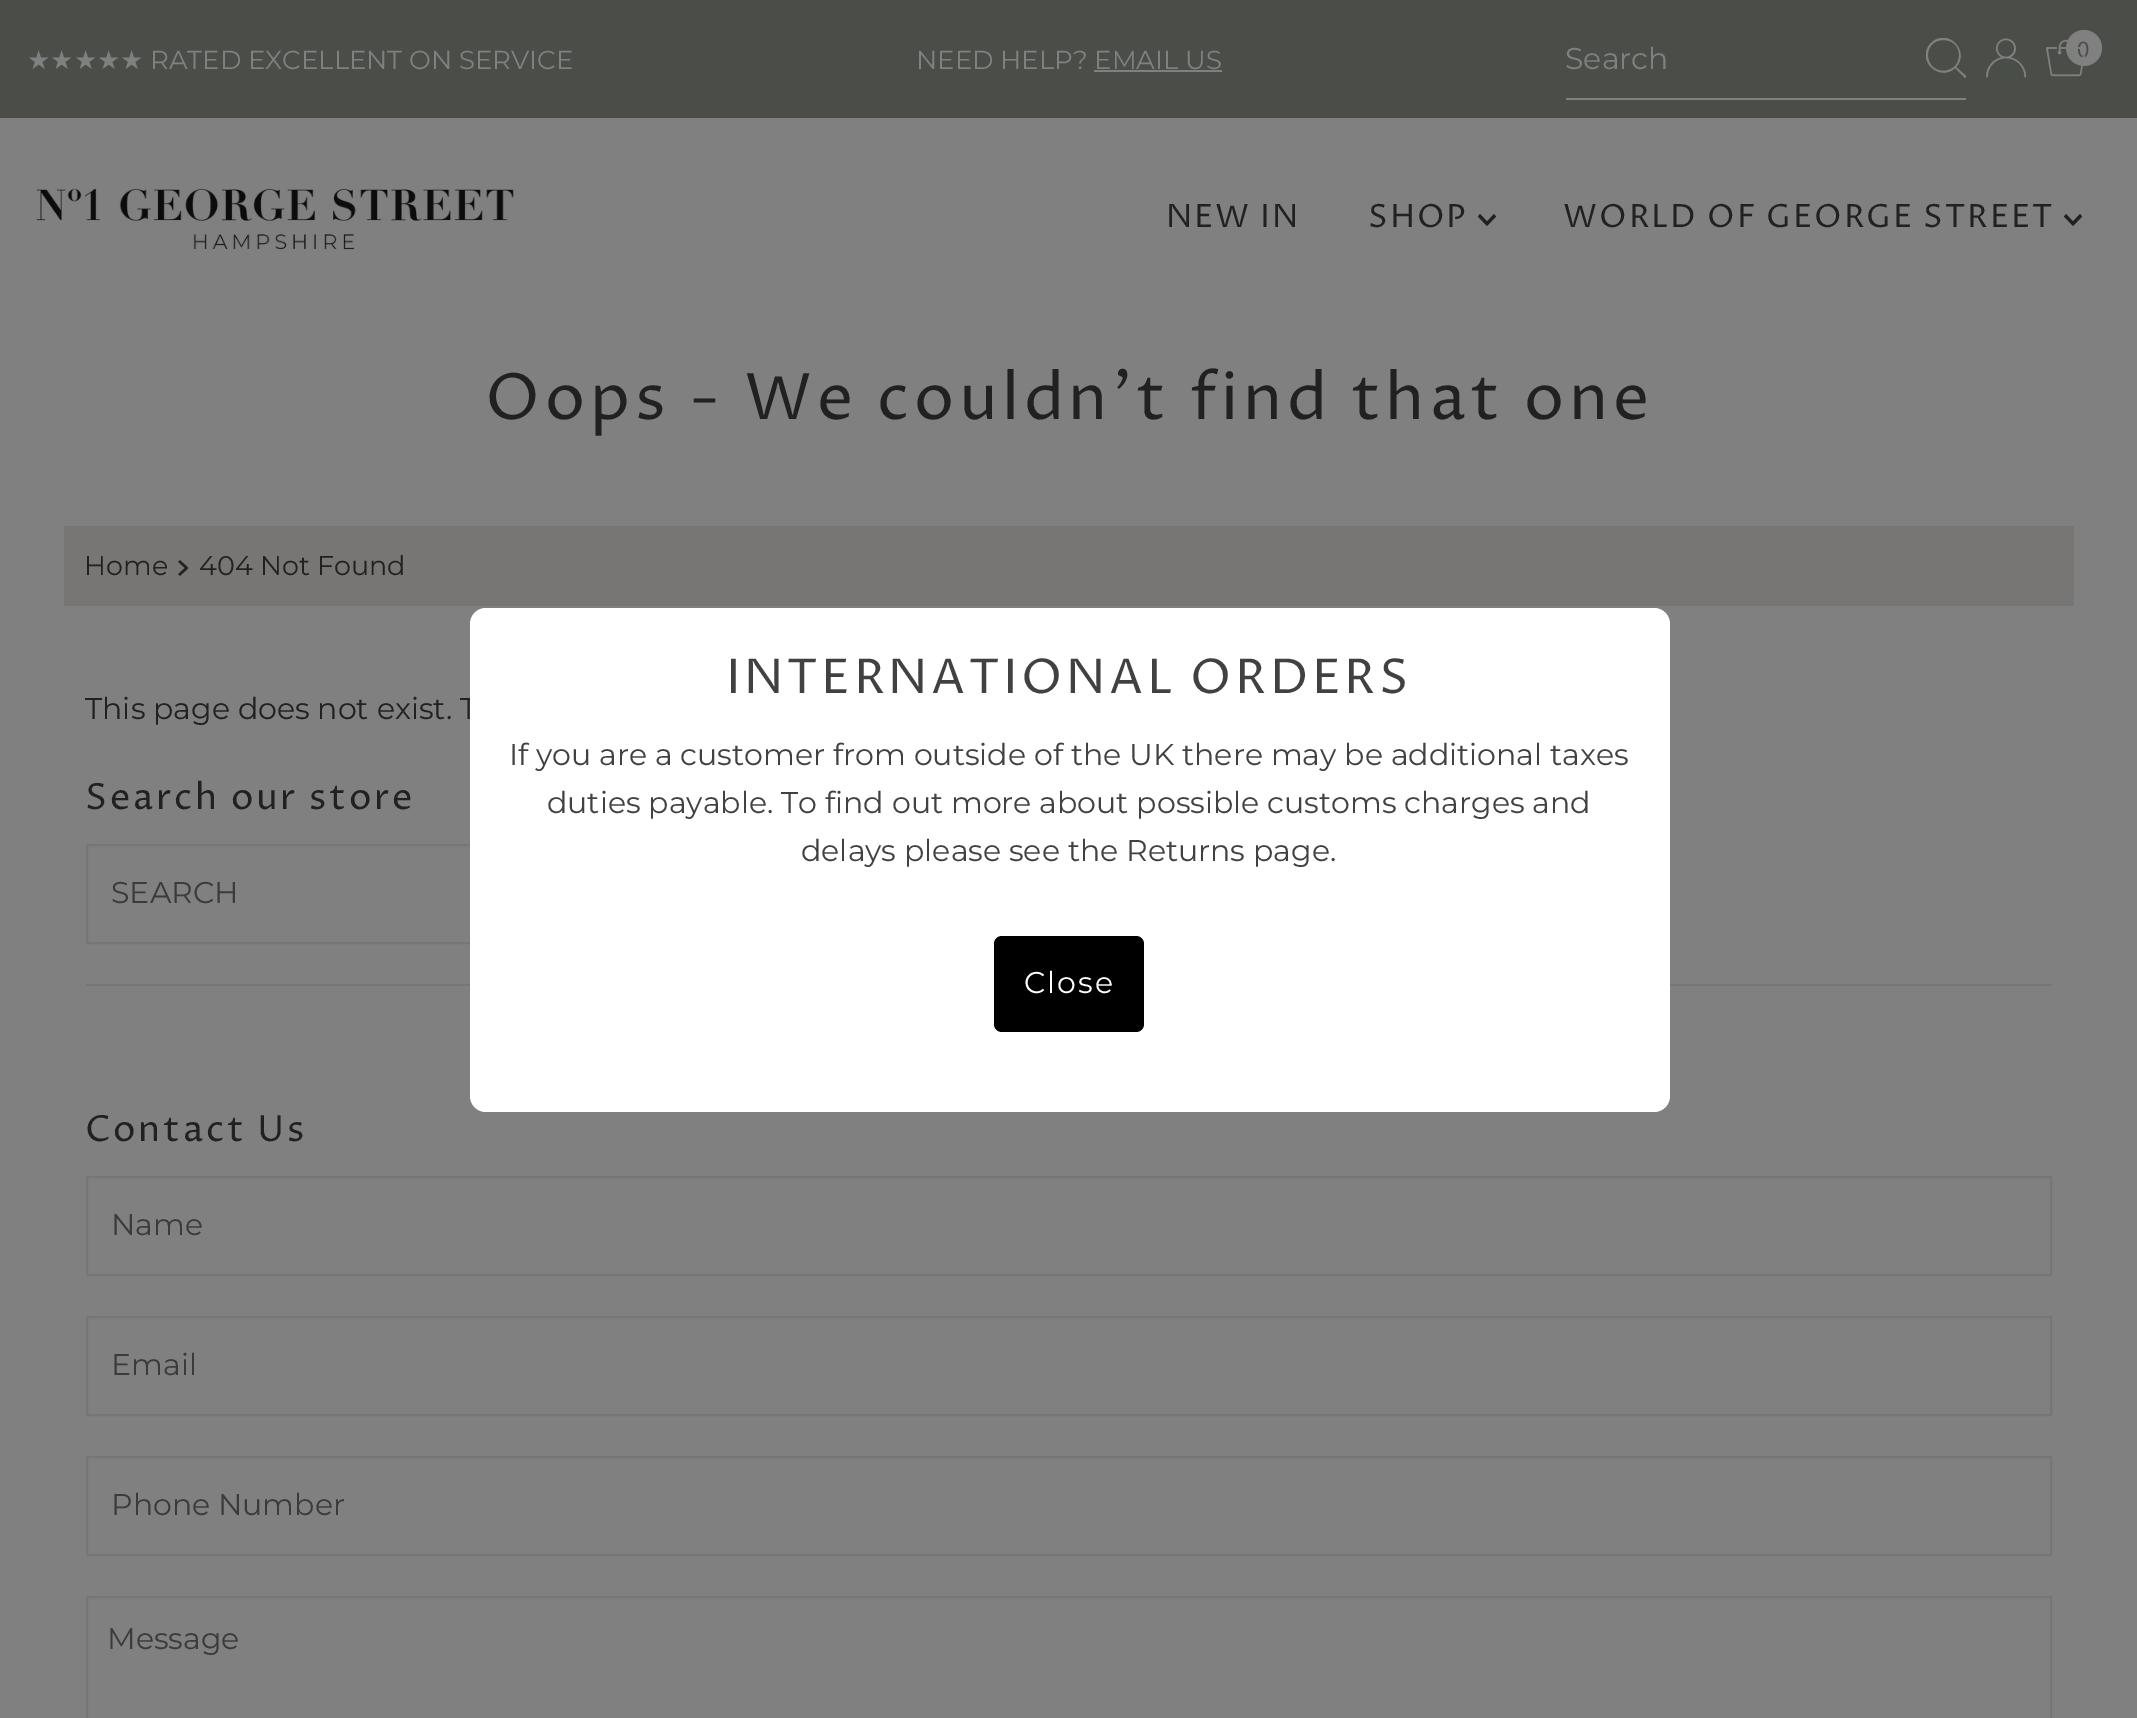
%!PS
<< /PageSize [2137 1718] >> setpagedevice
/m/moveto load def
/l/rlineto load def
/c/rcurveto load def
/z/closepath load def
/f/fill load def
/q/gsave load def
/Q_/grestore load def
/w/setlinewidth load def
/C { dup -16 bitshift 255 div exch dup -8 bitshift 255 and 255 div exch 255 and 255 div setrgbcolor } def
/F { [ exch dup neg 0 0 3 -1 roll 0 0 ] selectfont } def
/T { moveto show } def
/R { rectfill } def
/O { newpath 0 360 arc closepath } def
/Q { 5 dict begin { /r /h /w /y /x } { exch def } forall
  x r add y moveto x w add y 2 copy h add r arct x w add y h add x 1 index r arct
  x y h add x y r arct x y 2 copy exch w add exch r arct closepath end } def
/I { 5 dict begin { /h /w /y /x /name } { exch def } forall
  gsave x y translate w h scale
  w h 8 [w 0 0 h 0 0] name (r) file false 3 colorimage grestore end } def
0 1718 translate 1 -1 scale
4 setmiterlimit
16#808080 C
0 0 2137 1718 R
16#4B4E48 C
0 0 2137 118 R
/DejaVuSans-Regular 26 F
16#808080 C
(★★★★★) 27 69 T
/Montserrat-Thin 26 F
(RATED EXCELLENT ON SERVICE) 150 69 T
(NEED HELP? EMAIL US) 916 69 T
1094 70 128 2 R
1566 98 400 2 R
/Montserrat-Thin 30 F
(Search) 1565 69 T
q
1926 38 40 40 rectclip
1966 76 m -10 -9 l 15 -16 -9 -40 -25 -24 c -16 16 8 40 24 25 c 10 10 l 1 0 2 -1 1 -2 c z 1928 55 m 0 -20 31 -20 31 0 c 0 21 -31 21 -31 0 c z f
Q_
(1.rgb) 1986 38 40 40 I
2084 48 18 O f
/LiberationSans-Regular 22 F
16#4B4E48 C
(0) 2077 57 T
(2.rgb) 2046 39 39 38 I
(3.rgb) 36 188 478 62 I
/ProzaLibre-Regular 32 F
16#212121 C
1166 227 m 2 0 (NEW IN) ashow
1368 227 m 2 0 (SHOP) ashow
1494 214 m -7 7.5 l -7 -7.5 l -2 2.5 l 9 9.5 l 9 -9.5 l z f
1563 227 m 2 0 (WORLD OF GEORGE STREET) ashow
2080 214 m -7 7.5 l -7 -7.5 l -2 2.5 l 9 9.5 l 9 -9.5 l z f
/ProzaLibre-Regular 64 F
485 419 m 4.8 0 (Oops - We couldn't find that one) ashow
16#787674 C
64 526 2010 80 R
/Montserrat-Thin 27 F
16#212121 C
(Home) 84 575 T
(4.rgb) 178 560 10 16 I
(404 Not Found) 199 575 T
/Montserrat-Thin 30 F
(This page does not exist. T) 85 719 T
16#787674 C
86 984 1966 2 R
/ProzaLibre-Regular 36 F
16#212121 C
85 809 m 2.75 0 (Search our store) ashow
16#787674 C
2 w
87 845 598 98 rectstroke
/Montserrat-Thin 30 F
16#3B3B3B C
(SEARCH) 111 903 T
/ProzaLibre-Regular 36 F
16#212121 C
85 1141 m 2.75 0 (Contact Us) ashow
16#787674 C
87 1177 1964 98 rectstroke
/Montserrat-Thin 30 F
16#3B3B3B C
(Name) 111 1235 T
16#787674 C
87 1317 1964 98 rectstroke
16#3B3B3B C
(Email) 111 1375 T
16#787674 C
87 1457 1964 98 rectstroke
16#3B3B3B C
(Phone Number) 111 1515 T
16#787674 C
87 1597 1964 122 rectstroke
16#3B3B3B C
(Message) 107 1649 T
16#FFFFFF C
470 608 1200 504 16 Q f
/ProzaLibre-Regular 48 F
16#414141 C
726 693 m 3.6 0 (INTERNATIONAL ORDERS) ashow
/Montserrat-Thin 30 F
(If you are a customer from outside of the UK there may be additional taxes) 509 765 T
(duties payable. To find out more about possible customs charges and) 547 813 T
(delays please see the Returns page.) 801 861 T
16#000000 C
994 936 150 96 8 Q f
16#FFFFFF C
1024 993 m 2 0 (Close) ashow
showpage
